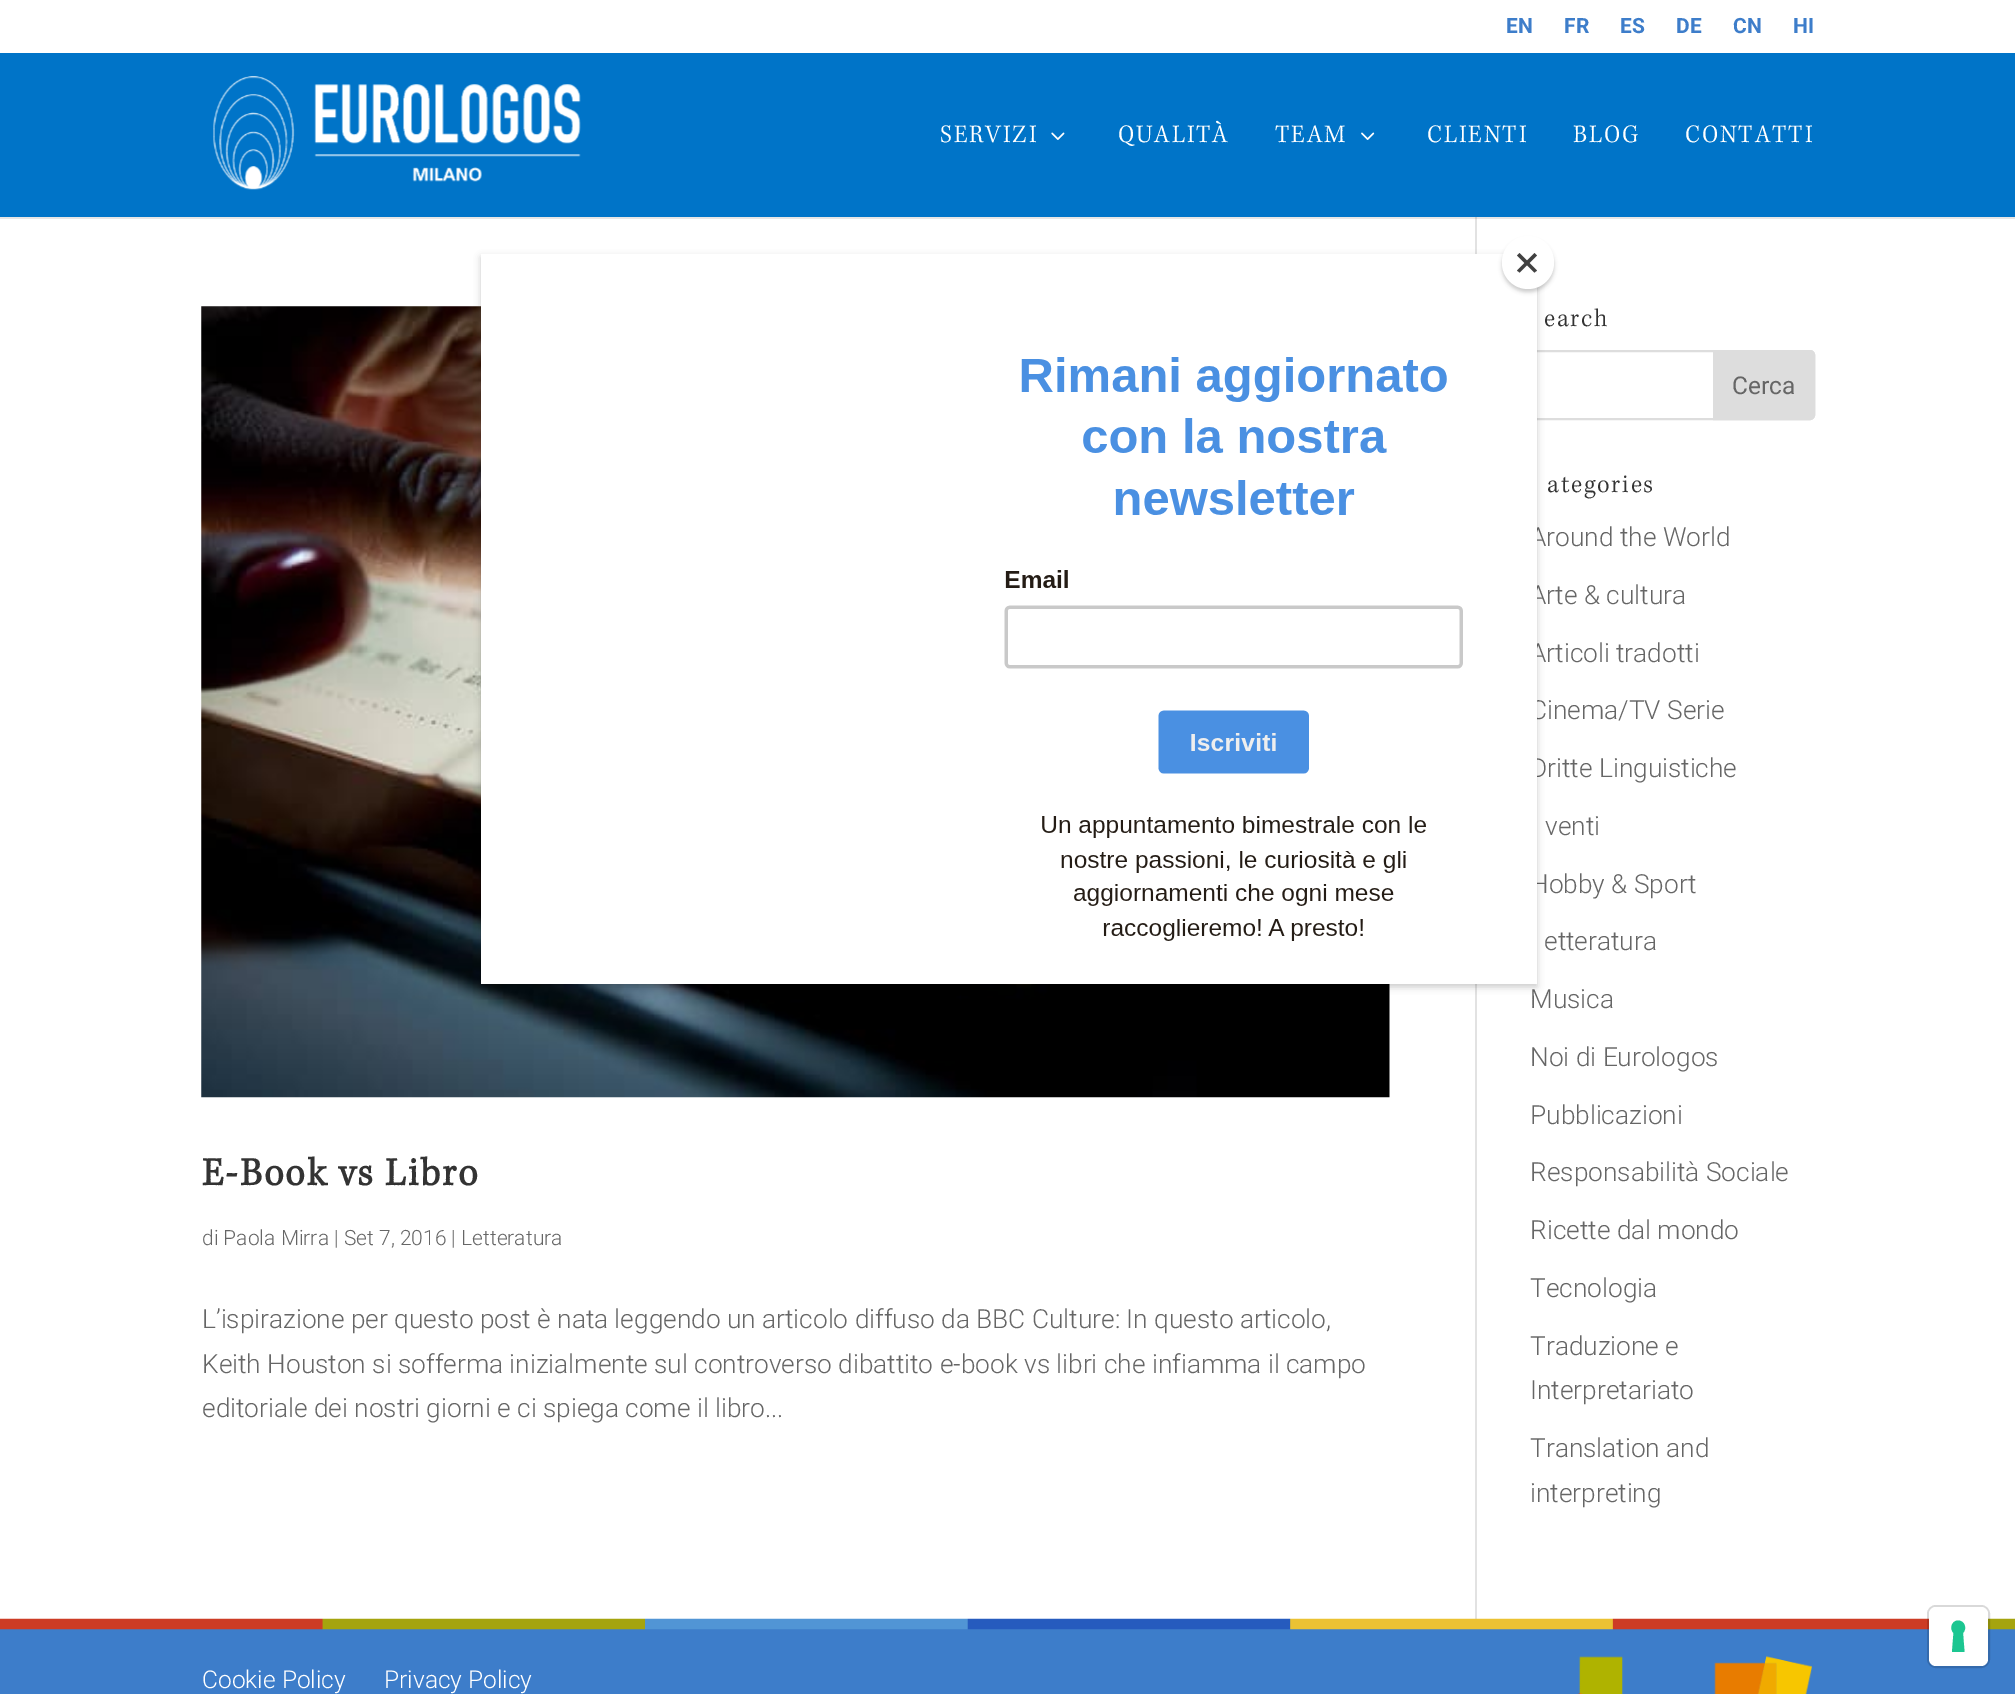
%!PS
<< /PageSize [2015 1694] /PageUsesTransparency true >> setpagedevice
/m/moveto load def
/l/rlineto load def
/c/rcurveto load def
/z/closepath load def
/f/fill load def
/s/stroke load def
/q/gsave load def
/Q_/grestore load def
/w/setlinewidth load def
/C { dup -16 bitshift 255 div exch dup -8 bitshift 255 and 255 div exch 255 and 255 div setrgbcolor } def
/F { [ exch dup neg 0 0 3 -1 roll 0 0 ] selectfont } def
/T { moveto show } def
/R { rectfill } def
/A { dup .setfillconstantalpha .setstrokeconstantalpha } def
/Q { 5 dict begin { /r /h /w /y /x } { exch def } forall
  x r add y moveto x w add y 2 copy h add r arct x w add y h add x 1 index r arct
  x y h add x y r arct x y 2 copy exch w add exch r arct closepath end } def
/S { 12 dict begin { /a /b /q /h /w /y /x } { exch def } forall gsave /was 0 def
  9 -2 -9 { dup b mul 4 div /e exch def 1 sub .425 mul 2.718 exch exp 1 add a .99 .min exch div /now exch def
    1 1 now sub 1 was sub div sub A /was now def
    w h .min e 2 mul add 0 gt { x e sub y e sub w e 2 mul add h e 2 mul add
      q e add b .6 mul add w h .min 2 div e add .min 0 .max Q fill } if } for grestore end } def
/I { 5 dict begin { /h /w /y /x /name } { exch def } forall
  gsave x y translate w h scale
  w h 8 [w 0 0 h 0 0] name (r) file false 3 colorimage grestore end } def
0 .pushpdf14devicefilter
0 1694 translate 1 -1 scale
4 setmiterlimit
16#FFFFFF C
0 0 2015 1694 R
16#E6E6E6 C
0 217 2015 2 R
/Roboto-Bold 21 F
16#3D7DCA C
(EN) 1506 33 T
(FR) 1564 33 T
(ES) 1620 33 T
(DE) 1676 33 T
(CN) 1733 33 T
(HI) 1793 33 T
16#0074C8 C
0 53 2015 164 R
(1.rgb) 213 76 368 114 I
/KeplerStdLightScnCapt-Light 26.25 F
16#FFFFFF C
940 142 m 1.75 0 (SERVIZI) ashow
(2.rgb) 1051 132 14 8 I
1118 142 m 1.75 0 (QUALITÀ) ashow
1275 142 m 1.75 0 (TEAM) ashow
(3.rgb) 1361 132 14 8 I
1427 142 m 1.75 0 (CLIENTI) ashow
1573 142 m 1.75 0 (BLOG) ashow
1685 142 m 1.75 0 (CONTATTI) ashow
16#E2E2E2 C
1475 219 2 1400 R
16#CBCBCB C
1475 217 2 2 R
(4.rgb) 201 306 1189 792 I
/KeplerStdLightScnCapt-Bold 41 F
16#333333 C
202 1185 m 1.75 0 (E-Book vs Libro) ashow
/Roboto-Light 21 F
16#666666 C
(di Paola Mirra | Set 7, 2016 | Letteratura) 202 1245 T
/Roboto-Light 26.25 F
(L’ispirazione per questo post è nata leggendo un articolo diffuso da BBC Culture: In questo articolo,) 202 1328 T
(Keith Houston si sofferma inizialmente sul controverso dibattito e-book vs libri che infiamma il campo) 202 1373 T
(editoriale dei nostri giorni e ci spiega come il libro...) 202 1417 T
/KeplerStdLightScnCapt-Light 26.25 F
16#333333 C
1544 326 m 1.75 0 (earch) ashow
16#DDDDDD C
2 w
1531 351 283 68 4 Q s
1714 351 m 96 0 l 2 0 4 2 4 4 c 0 60 l 0 2 -2 4 -4 4 c -96 0 l z q f Q_
s
/Roboto-Regular 24.5 F
16#666666 C
(Cerca) 1732 394 T
/KeplerStdLightScnCapt-Light 26.25 F
16#333333 C
1547 492 m 1.75 0 (ategories) ashow
/Roboto-Light 26.25 F
16#666666 C
(Around the World) 1530 546 T
(Arte & cultura) 1530 604 T
(Articoli tradotti) 1530 662 T
(Cinema/TV Serie) 1530 719 T
(Dritte Linguistiche) 1530 777 T
(venti) 1545 835 T
(Hobby & Sport) 1530 893 T
(etteratura) 1544 950 T
(Musica) 1530 1008 T
(Noi di Eurologos) 1530 1066 T
(Pubblicazioni) 1530 1124 T
(Responsabilità Sociale) 1530 1181 T
(Ricette dal mondo) 1530 1239 T
(Tecnologia) 1530 1297 T
(Traduzione e) 1530 1355 T
(Interpretariato) 1530 1399 T
(Translation and) 1530 1457 T
(interpreting) 1530 1502 T
16#3D7DCA C
0 1629 2015 65 R
(5.rgb) 0 1618 2015 12 I
/Roboto-Light 24.5 F
16#FFFFFF C
(Cookie Policy) 202 1688 T
(Privacy Policy) 384 1688 T
(6.rgb) 1577 1656 235 38 I
16#000000 C
481 257 1056 730 0 3.5 .2 S
(7.rgb) 481 254 1056 730 I
1502 240 52 52 26 2 .2 S
16#FFFFFF C
1502 236 52 53 26 Q f
16#414141 C
1534.5 253 m 2.5 2.5 l -17.5 17 l -2.5 -2 l z f
1517 255.5 m 2.5 -2.5 l 17.5 17.5 l -2.5 2 l z f
0.15 A
16#000000 C
1928 1606 61 61 8 Q s
1 A
16#FFFFFF C
1929 1607 59 59 7 Q f
16#1CC691 C
1958 1620.5 m 6.5 0 9.5 8 5 12.5 c 1.5 19 l -12.5 0 l 1.5 -19 l -4.5 -4.5 -1.5 -12.5 4.5 -12.5 c z eofill
.poppdf14devicefilter showpage
